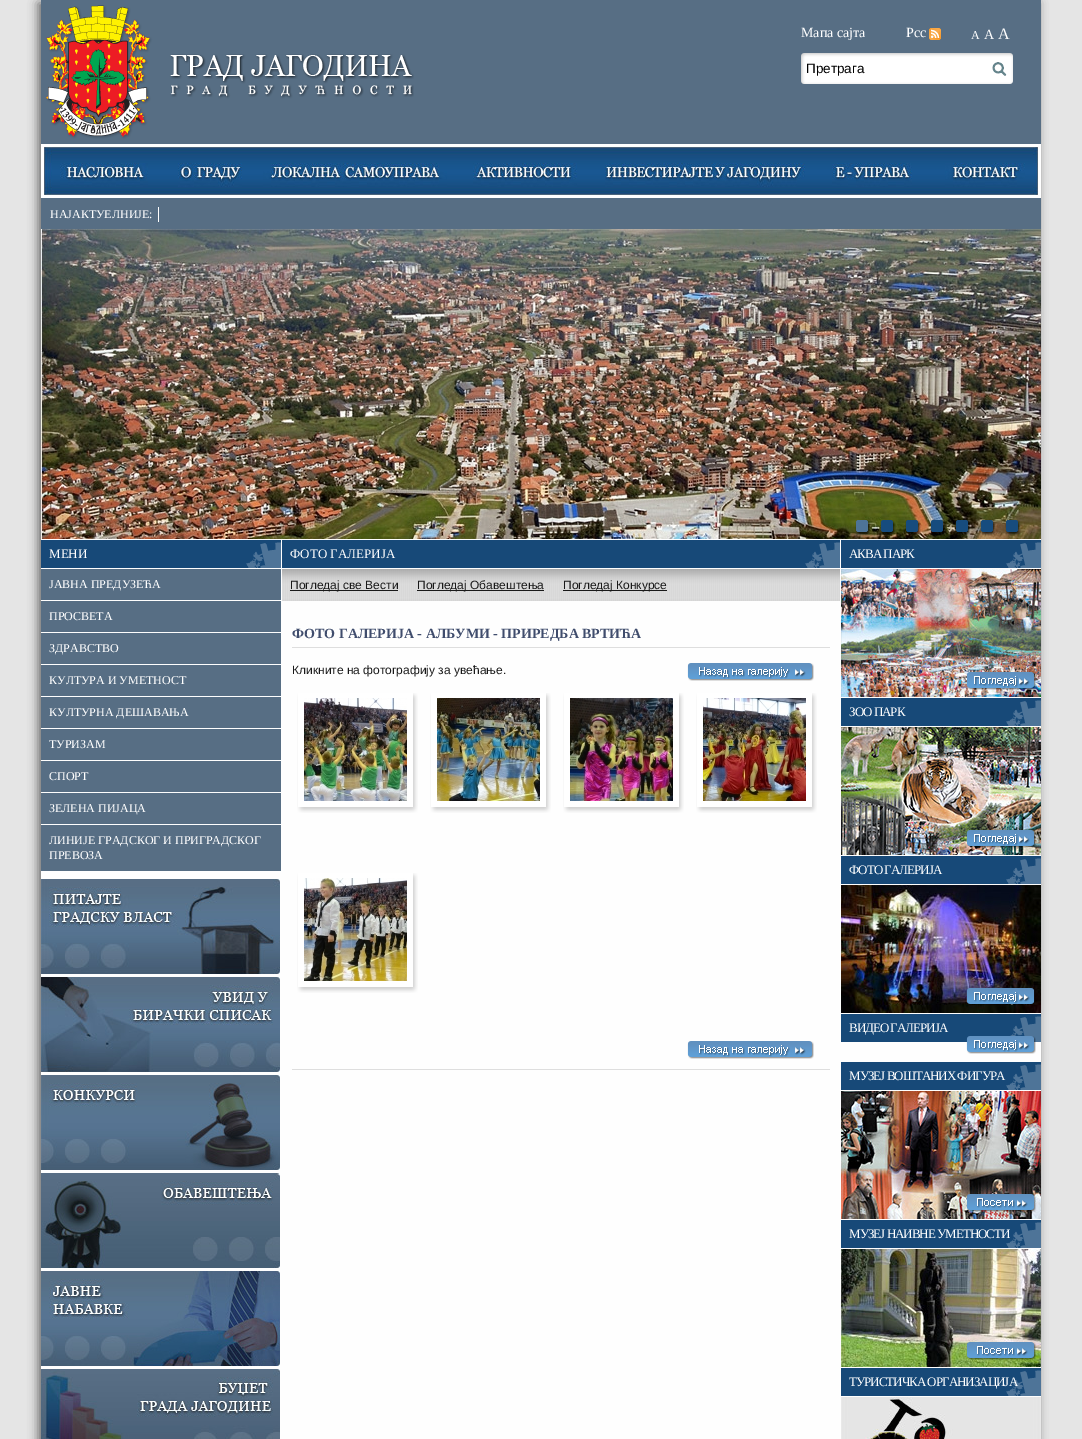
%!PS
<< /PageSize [1082 1439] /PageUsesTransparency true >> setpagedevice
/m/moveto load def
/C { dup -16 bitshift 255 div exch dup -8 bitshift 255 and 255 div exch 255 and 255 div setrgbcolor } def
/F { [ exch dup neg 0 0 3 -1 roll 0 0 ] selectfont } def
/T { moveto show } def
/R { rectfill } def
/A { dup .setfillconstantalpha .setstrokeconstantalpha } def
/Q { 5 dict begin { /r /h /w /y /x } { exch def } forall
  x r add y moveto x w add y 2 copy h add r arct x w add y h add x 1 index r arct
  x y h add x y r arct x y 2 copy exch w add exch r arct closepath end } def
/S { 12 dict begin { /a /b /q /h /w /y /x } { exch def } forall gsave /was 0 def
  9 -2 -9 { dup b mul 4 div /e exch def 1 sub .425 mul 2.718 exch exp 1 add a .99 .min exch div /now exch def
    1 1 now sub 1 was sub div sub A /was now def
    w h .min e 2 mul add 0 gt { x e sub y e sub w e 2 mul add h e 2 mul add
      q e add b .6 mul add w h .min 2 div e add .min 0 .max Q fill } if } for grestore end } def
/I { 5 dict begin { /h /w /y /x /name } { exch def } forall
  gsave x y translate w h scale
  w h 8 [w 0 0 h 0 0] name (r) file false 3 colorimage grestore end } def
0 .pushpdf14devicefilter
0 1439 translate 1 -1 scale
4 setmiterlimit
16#E5E5E5 C
0 0 1082 1439 R
16#666666 C
38 3 1000 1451 0 5 1 S
16#FEFEFE C
41 539 1000 900 R
16#576E84 C
41 0 1000 144 R
(1.rgb) 46 5 368 134 I
/LiberationSerif-Regular 14 F
16#FFFFFF C
(Мапа сајта) 801 37 T
(2.rgb) 929 28 12 12 I
(Рсс) 906 37 T
/LiberationSerif-Regular 12 F
(А) 971 39 T
/LiberationSerif-Regular 14 F
(А) 984 39 T
/LiberationSerif-Regular 16 F
(А) 998 39 T
(3.rgb) 801 53 212 31 I
/LiberationSans-Regular 13.5 F
16#000000 C
(Претрага) 806 73 T
(4.rgb) 992 62 15 14 I
16#FFFFFF C
41 144 1000 54 R
(5.rgb) 44 147 118 48 I
(6.rgb) 162 147 93 48 I
(7.rgb) 255 147 202 48 I
(8.rgb) 457 147 132 48 I
(9.rgb) 589 147 227 48 I
(10.rgb) 816 147 113 48 I
(11.rgb) 929 147 109 48 I
16#576E84 C
41 198 1000 31 R
16#FFFFFF C
158 207 1 15 R
/LiberationSerif-Regular 12 F
(НАЈАКТУЕЛНИЈЕ:) 50 218 T
(12.rgb) 41 229 1000 310 I
(13.rgb) 855 520 16 15 I
(14.rgb) 880 520 16 16 I
(15.rgb) 905 520 16 16 I
(16.rgb) 930 520 16 15 I
(17.rgb) 955 520 16 16 I
(18.rgb) 980 520 16 16 I
(19.rgb) 1005 520 16 16 I
16#174978 C
41 540 240 28 R
(20.rgb) 246 542 35 26 I
/LiberationSerif-Regular 13 F
16#FFFFFF C
(МЕНИ) 49 558 T
16#576E84 C
41 569 240 31 R
/LiberationSerif-Regular 12 F
16#FFFFFF C
(ЈАВНА ПРЕДУЗЕЋА) 49 588 T
16#576E84 C
41 601 240 31 R
16#FFFFFF C
(ПРОСВЕТА) 49 620 T
16#576E84 C
41 633 240 31 R
16#FFFFFF C
(ЗДРАВСТВО) 49 652 T
16#576E84 C
41 665 240 31 R
16#FFFFFF C
(КУЛТУРА И УМЕТНОСТ) 49 684 T
16#576E84 C
41 697 240 31 R
16#FFFFFF C
(КУЛТУРНА ДЕШАВАЊА) 49 716 T
16#576E84 C
41 729 240 31 R
16#FFFFFF C
(ТУРИЗАМ) 49 748 T
16#576E84 C
41 761 240 31 R
16#FFFFFF C
(СПОРТ) 49 780 T
16#576E84 C
41 793 240 31 R
16#FFFFFF C
(ЗЕЛЕНА ПИЈАЦА) 49 812 T
16#576E84 C
41 825 240 46 R
16#FFFFFF C
(ЛИНИЈЕ ГРАДСКОГ И ПРИГРАДСКОГ) 49 844 T
(ПРЕВОЗА) 49 859 T
(21.rgb) 41 879 239 95 I
(22.rgb) 41 977 239 95 I
(23.rgb) 41 1075 239 95 I
(24.rgb) 41 1173 239 95 I
(25.rgb) 41 1271 239 95 I
(26.rgb) 41 1369 239 70 I
16#174978 C
282 540 558 28 R
(20.rgb) 805 542 35 26 I
/LiberationSerif-Regular 13 F
16#FFFFFF C
(ФОТО ГАЛЕРИЈА) 290 558 T
(27.rgb) 282 569 558 32 I
16#191919 C
290 590 108 1 R
/LiberationSans-Regular 12 F
(Погледај све Вести) 290 589 T
417 590 127 1 R
(Погледај Обавештења) 417 589 T
563 590 104 1 R
(Погледај Конкурсе) 563 589 T
16#DEDEDE C
292 647 538 1 R
/LiberationSerif-Bold 14 F
16#404D6D C
(ФОТО ГАЛЕРИЈА - АЛБУМИ - ПРИРЕДБА ВРТИЋА) 292 638 T
16#DEDEDE C
292 1069 538 1 R
/LiberationSans-Regular 12 F
16#191919 C
(Кликните на фотографију за увећање.) 292 674 T
(28.rgb) 687 663 127 18 I
(29.rgb) 297 693 121 120 I
(30.rgb) 304 698 103 103 I
(29.rgb) 430 693 121 120 I
(31.rgb) 437 698 103 103 I
(29.rgb) 563 693 121 120 I
(32.rgb) 570 698 103 103 I
(29.rgb) 696 693 121 120 I
(33.rgb) 703 698 103 103 I
(29.rgb) 297 873 121 120 I
(34.rgb) 304 878 103 103 I
(28.rgb) 687 1041 127 18 I
16#174978 C
841 540 200 28 R
(20.rgb) 1006 542 35 26 I
/LiberationSerif-Regular 13 F
16#FFFFFF C
849 558 m -1 0 (АКВА ПАРК) ashow
(35.rgb) 841 569 200 128 I
(36.rgb) 966 672 70 18 I
16#174978 C
841 698 200 28 R
(20.rgb) 1006 700 35 26 I
16#FFFFFF C
849 716 m -1 0 (ЗОО ПАРК) ashow
(37.rgb) 841 727 200 128 I
(38.rgb) 966 830 70 18 I
16#174978 C
841 856 200 28 R
(20.rgb) 1006 858 35 26 I
16#FFFFFF C
849 874 m -1 0 (ФОТО ГАЛЕРИЈА) ashow
(39.rgb) 841 885 200 128 I
(40.rgb) 966 988 69 17 I
16#174978 C
841 1014 200 28 R
(20.rgb) 1006 1016 35 26 I
16#FFFFFF C
849 1032 m -1 0 (ВИДЕО ГАЛЕРИЈА) ashow
(41.rgb) 966 1036 70 18 I
16#174978 C
841 1062 200 28 R
(20.rgb) 1006 1064 35 26 I
16#FFFFFF C
849 1080 m -1 0 (МУЗЕЈ ВОШТАНИХ ФИГУРА) ashow
(42.rgb) 841 1091 200 128 I
(43.rgb) 966 1194 70 18 I
16#174978 C
841 1220 200 28 R
(20.rgb) 1006 1222 35 26 I
16#FFFFFF C
849 1238 m -1 0 (МУЗЕЈ НАИВНЕ УМЕТНОСТИ) ashow
(44.rgb) 841 1249 200 118 I
(45.rgb) 966 1342 70 18 I
16#174978 C
841 1368 200 28 R
(20.rgb) 1006 1370 35 26 I
16#FFFFFF C
849 1386 m -1 0 (ТУРИСТИЧКА ОРГАНИЗАЦИЈА) ashow
(46.rgb) 841 1397 200 42 I
.poppdf14devicefilter showpage
